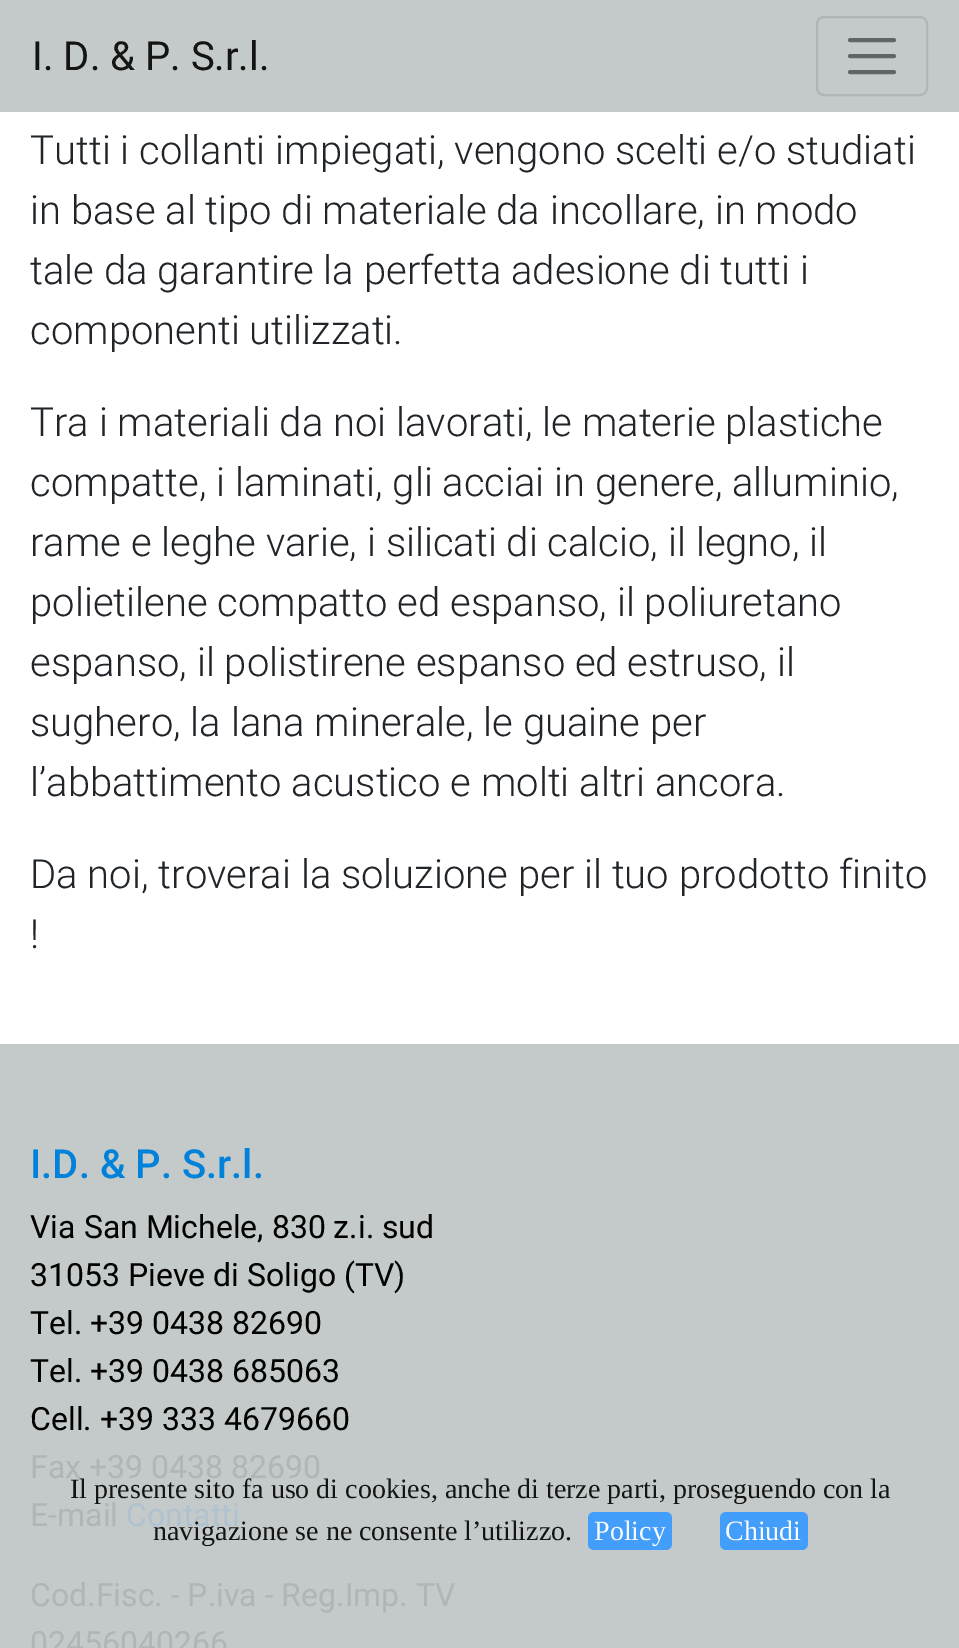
%!PS
<< /PageSize [959 1648] >> setpagedevice
/m/moveto load def
/l/rlineto load def
/f/fill load def
/s/stroke load def
/w/setlinewidth load def
/C { dup -16 bitshift 255 div exch dup -8 bitshift 255 and 255 div exch 255 and 255 div setrgbcolor } def
/F { [ exch dup neg 0 0 3 -1 roll 0 0 ] selectfont } def
/T { moveto show } def
/R { rectfill } def
/Q { 5 dict begin { /r /h /w /y /x } { exch def } forall
  x r add y moveto x w add y 2 copy h add r arct x w add y h add x 1 index r arct
  x y h add x y r arct x y 2 copy exch w add exch r arct closepath end } def
0 1648 translate 1 -1 scale
4 setmiterlimit
16#FFFFFF C
0 0 959 1648 R
16#C4CACA C
0 0 959 112 R
/Roboto-Regular 40 F
16#141414 C
(I. D. & P. S.r.l.) 32 70 T
16#B0B6B6 C
2 w
817 17 110 78 7 Q s
16#626565 C
4 w
1 setlinecap
850 40 m 44 0 l 850 56 m 44 0 l 850 72 m 44 0 l s
/Roboto-Light 40 F
16#212529 C
(Tutti i collanti impiegati, vengono scelti e/o studiati) 30 164 T
(in base al tipo di materiale da incollare, in modo) 30 224 T
(tale da garantire la perfetta adesione di tutti i) 30 284 T
(componenti utilizzati.) 30 344 T
(Tra i materiali da noi lavorati, le materie plastiche) 30 436 T
(compatte, i laminati, gli acciai in genere, alluminio,) 30 496 T
(rame e leghe varie, i silicati di calcio, il legno, il) 30 556 T
(polietilene compatto ed espanso, il poliuretano) 30 616 T
(espanso, il polistirene espanso ed estruso, il) 30 676 T
(sughero, la lana minerale, le guaine per) 30 736 T
(l’abbattimento acustico e molti altri ancora.) 30 796 T
(Da noi, troverai la soluzione per il tuo prodotto finito) 30 888 T
(!) 30 948 T
16#C4CACA C
0 1044 959 604 R
/Roboto-Medium 40 F
16#0082DB C
(I.D. & P. S.r.l.) 30 1178 T
/Roboto-Regular 32 F
16#000000 C
(Via San Michele, 830 z.i. sud) 30 1238 T
(31053 Pieve di Soligo \(TV\)) 30 1286 T
(Tel. +39 0438 82690) 30 1334 T
(Tel. +39 0438 685063) 30 1382 T
(Cell. +39 333 4679660) 30 1430 T
16#B0B6B6 C
(Fax +39 0438 82690) 30 1478 T
(E-mail) 30 1526 T
16#B0C2CF C
(Contatti) 126 1526 T
16#B0B6B6 C
(Cod.Fisc. - P.iva - Reg.Imp. TV) 30 1606 T
(02456040266) 30 1654 T
/LiberationSerif-Regular 28 F
16#141414 C
(Il presente sito fa uso di cookies, anche di terze parti, proseguendo con la) 70 1498 T
(navigazione se ne consente l’utilizzo.) 153 1540 T
16#429EFA C
588 1512 84 38 6 Q f
16#F9FAFA C
(Policy) 594 1540 T
16#429EFA C
720 1512 88 38 6 Q f
16#F9FAFA C
(Chiudi) 725 1540 T
showpage
